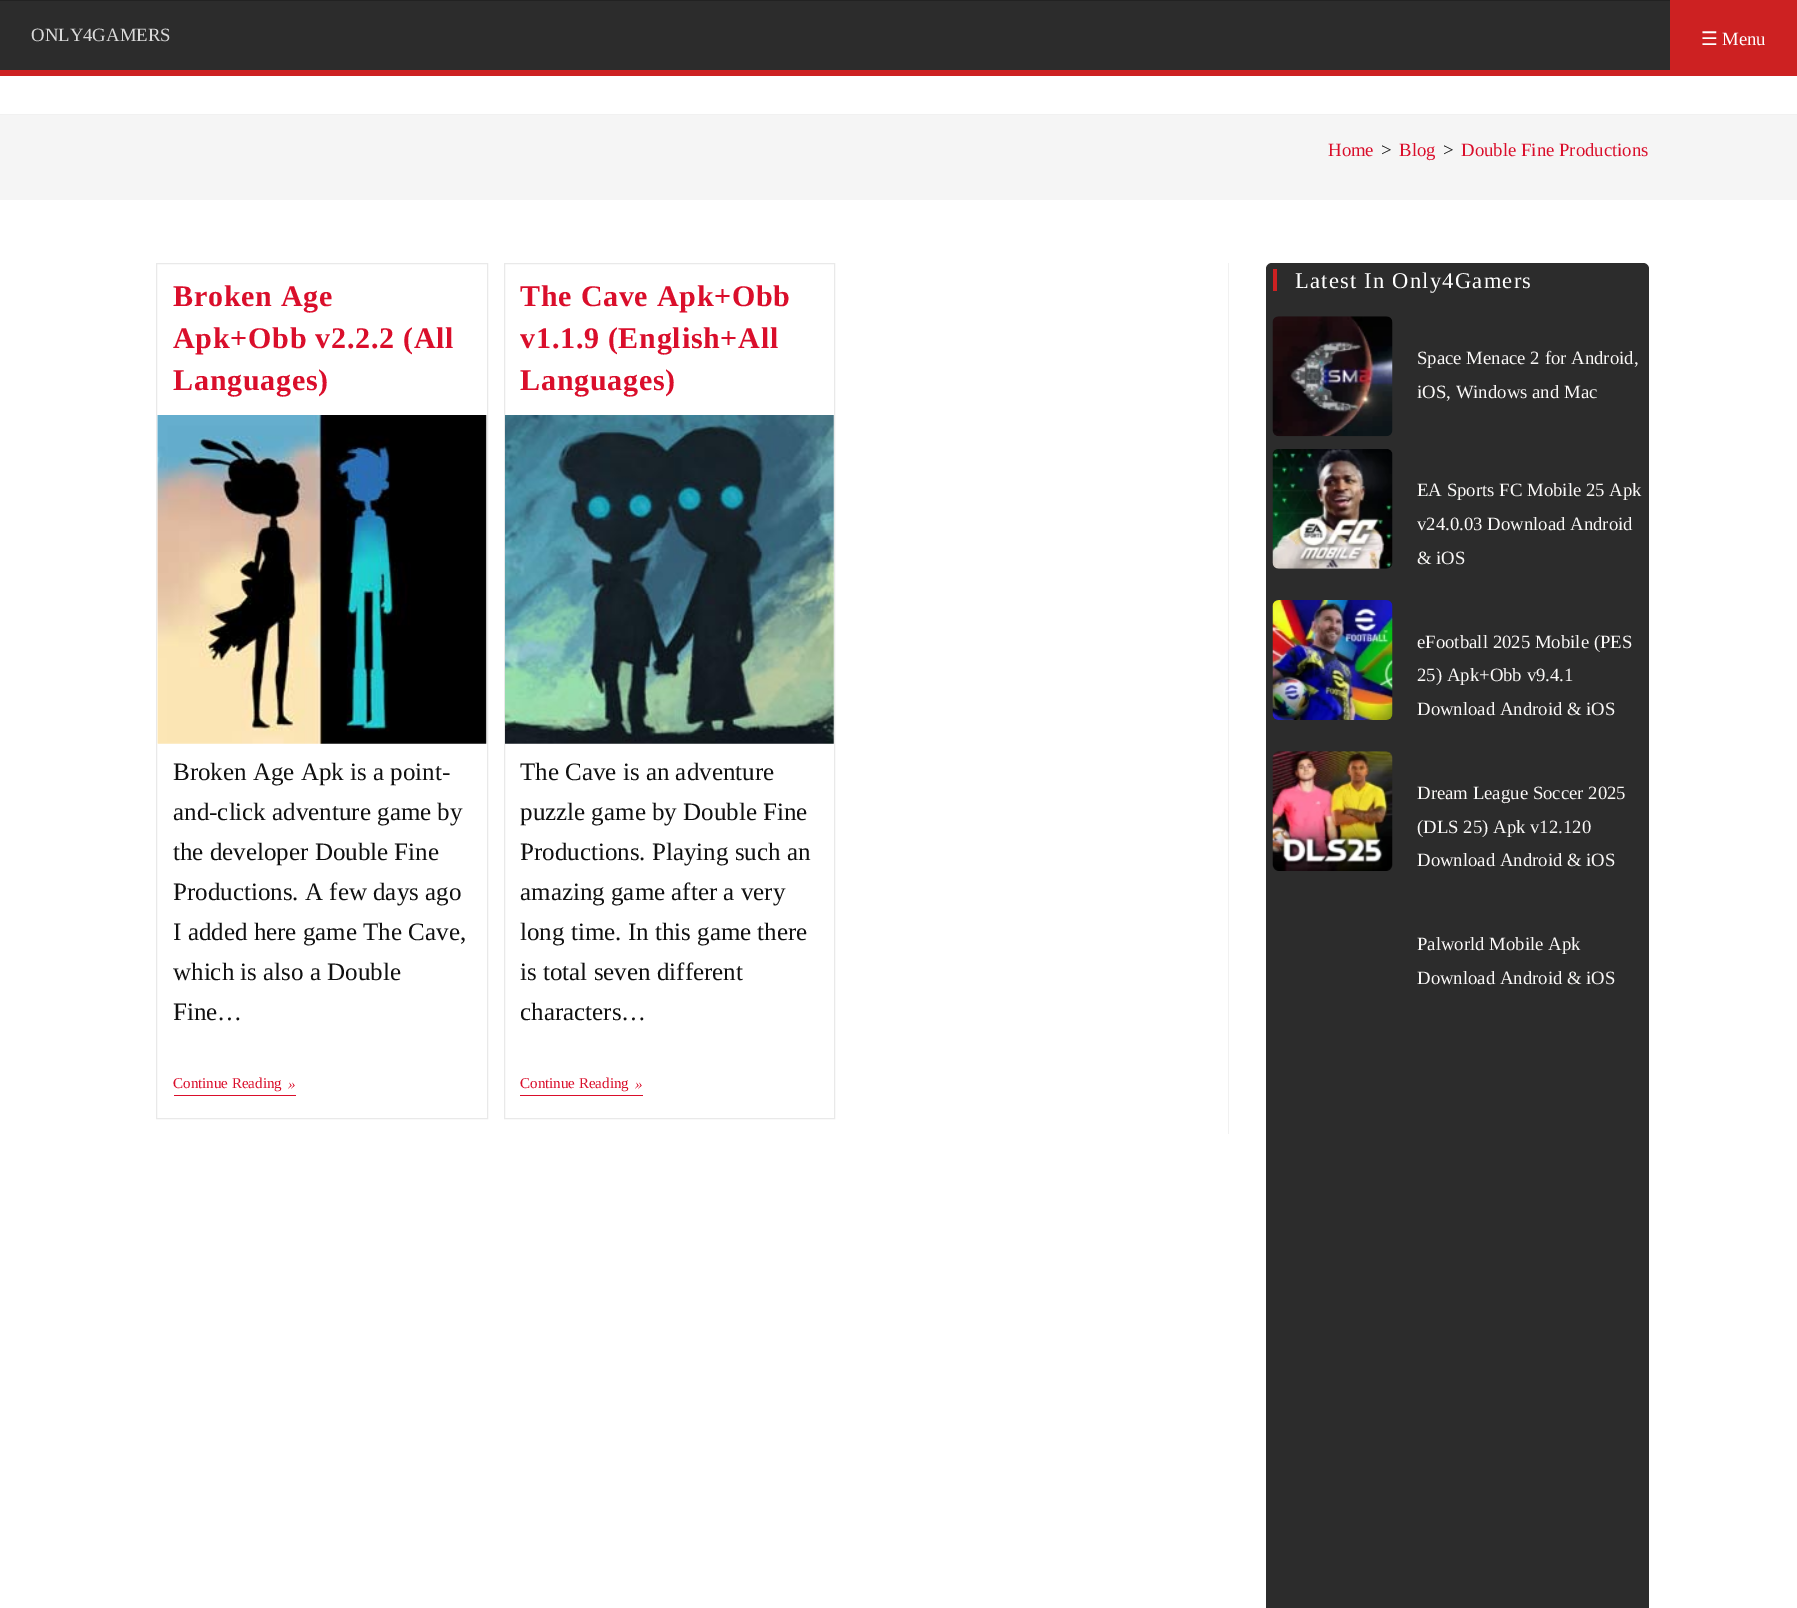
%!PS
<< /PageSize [1797 1608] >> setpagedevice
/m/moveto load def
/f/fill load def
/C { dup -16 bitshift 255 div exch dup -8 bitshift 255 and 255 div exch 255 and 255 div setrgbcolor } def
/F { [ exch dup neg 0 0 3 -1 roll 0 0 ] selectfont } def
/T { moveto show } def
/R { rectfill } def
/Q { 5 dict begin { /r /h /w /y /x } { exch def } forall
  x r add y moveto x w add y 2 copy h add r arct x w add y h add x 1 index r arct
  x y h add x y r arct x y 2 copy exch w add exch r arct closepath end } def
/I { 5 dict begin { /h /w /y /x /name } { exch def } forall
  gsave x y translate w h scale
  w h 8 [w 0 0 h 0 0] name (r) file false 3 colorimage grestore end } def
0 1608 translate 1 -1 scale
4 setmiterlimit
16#FFFFFF C
0 0 1797 1608 R
16#2C2C2C C
0 1 1670 69 R
16#222222 C
0 0 1670 1 R
16#CD2122 C
0 70 1670 6 R
/LiberationSerif-Regular 18.75 F
16#D9D9D9 C
(ONLY4GAMERS) 31 41 T
16#CD2122 C
1670 0 127 76 R
/DejaVuSans-Regular 18.75 F
16#FFFFFF C
(☰) 1701 45 T
/LiberationSerif-Regular 18.75 F
(Menu) 1722 45 T
16#F1F1F1 C
0 114 1797 1 R
16#F5F5F5 C
0 115 1797 85 R
16#DA0E2B C
(Home) 1328 156 T
16#111111 C
(>) 1381 156 T
16#DA0E2B C
(Blog) 1399 156 T
16#111111 C
(>) 1443 156 T
16#DA0E2B C
(Double Fine Productions) 1461 156 T
16#F1F1F1 C
1228 263 1 871 R
16#E9E9E9 C
156.5 263.5 331 855 rectstroke
/LiberationSerif-Bold 30 F
16#DA0E2B C
173 306 m .75 0 (Broken Age) ashow
173 348 m .75 0 (Apk+Obb v2.2.2 \(All) ashow
173 390 m .75 0 (Languages\)) ashow
(1.rgb) 157 415 330 329 I
/LiberationSerif-Regular 25 F
16#111111 C
(Broken Age Apk is a point-) 173 780 T
(and-click adventure game by) 173 820 T
(the developer Double Fine) 173 860 T
(Productions. A few days ago) 173 900 T
(I added here game The Cave,) 173 940 T
(which is also a Double) 173 980 T
(Fine…) 173 1020 T
16#DA0E2B C
174 1095 122 1 R
/LiberationSerif-Regular 15 F
(Continue Reading) 173 1088 T
/LiberationSerif-Italic 15 F
(») 288 1089 T
16#E9E9E9 C
504.5 263.5 330 855 rectstroke
/LiberationSerif-Bold 30 F
16#DA0E2B C
520 306 m .75 0 (The Cave Apk+Obb) ashow
520 348 m .75 0 (v1.1.9 \(English+All) ashow
520 390 m .75 0 (Languages\)) ashow
(2.rgb) 505 415 329 329 I
/LiberationSerif-Regular 25 F
16#111111 C
(The Cave is an adventure) 520 780 T
(puzzle game by Double Fine) 520 820 T
(Productions. Playing such an) 520 860 T
(amazing game after a very) 520 900 T
(long time. In this game there) 520 940 T
(is total seven different) 520 980 T
(characters…) 520 1020 T
16#DA0E2B C
520 1095 123 1 R
/LiberationSerif-Regular 15 F
(Continue Reading) 520 1088 T
/LiberationSerif-Italic 15 F
(») 635 1089 T
16#2C2C2C C
1266 263 383 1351 6 Q f
16#CD2122 C
1273 269 4 22 R
/LiberationSerif-Regular 22.5 F
16#FFFFFF C
1295 288 m 1.25 0 (Latest In Only4Gamers) ashow
(3.rgb) 1272 316 121 121 I
/LiberationSerif-Regular 18.75 F
16#FAF8F7 C
(Space Menace 2 for Android,) 1417 364 T
(iOS, Windows and Mac) 1417 398 T
(4.rgb) 1272 449 121 120 I
(EA Sports FC Mobile 25 Apk) 1417 496 T
(v24.0.03 Download Android) 1417 530 T
(& iOS) 1417 564 T
(5.rgb) 1272 600 121 120 I
(eFootball 2025 Mobile \(PES) 1417 648 T
(25\) Apk+Obb v9.4.1) 1417 681 T
(Download Android & iOS) 1417 715 T
(6.rgb) 1272 751 121 120 I
(Dream League Soccer 2025) 1417 799 T
(\(DLS 25\) Apk v12.120) 1417 833 T
(Download Android & iOS) 1417 866 T
(Palworld Mobile Apk) 1417 950 T
(Download Android & iOS) 1417 984 T
showpage
